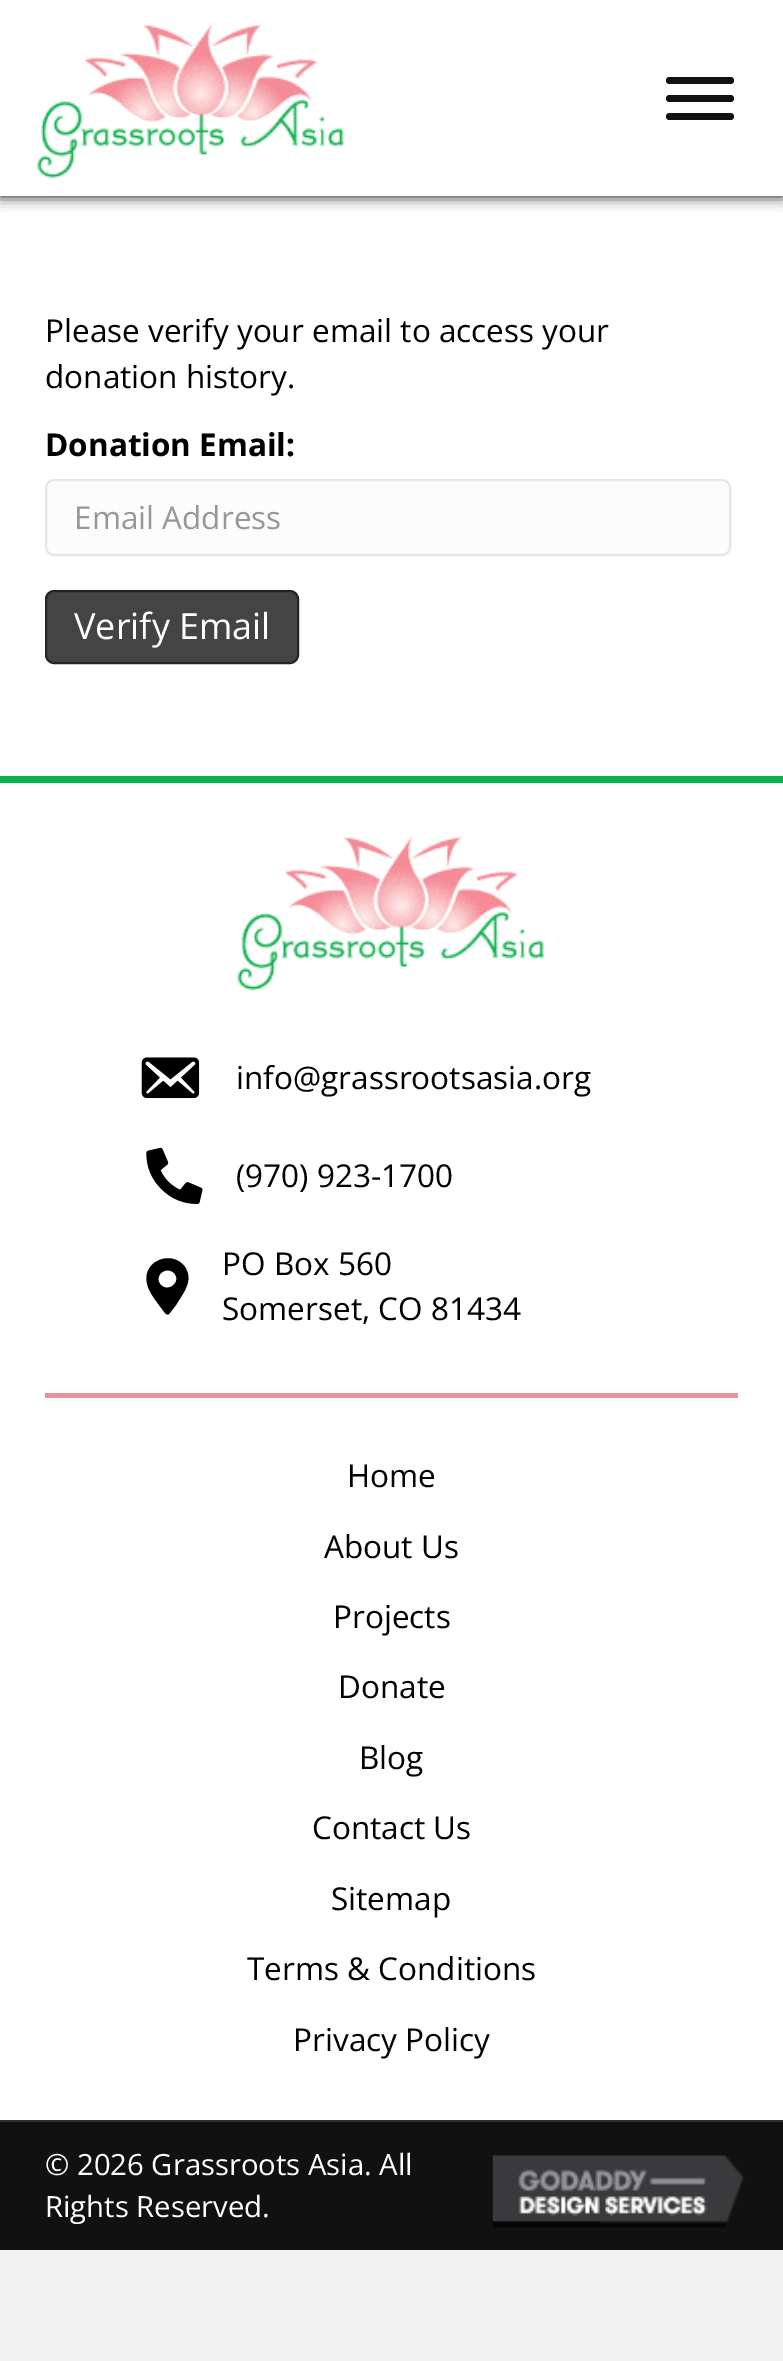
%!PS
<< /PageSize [783 2361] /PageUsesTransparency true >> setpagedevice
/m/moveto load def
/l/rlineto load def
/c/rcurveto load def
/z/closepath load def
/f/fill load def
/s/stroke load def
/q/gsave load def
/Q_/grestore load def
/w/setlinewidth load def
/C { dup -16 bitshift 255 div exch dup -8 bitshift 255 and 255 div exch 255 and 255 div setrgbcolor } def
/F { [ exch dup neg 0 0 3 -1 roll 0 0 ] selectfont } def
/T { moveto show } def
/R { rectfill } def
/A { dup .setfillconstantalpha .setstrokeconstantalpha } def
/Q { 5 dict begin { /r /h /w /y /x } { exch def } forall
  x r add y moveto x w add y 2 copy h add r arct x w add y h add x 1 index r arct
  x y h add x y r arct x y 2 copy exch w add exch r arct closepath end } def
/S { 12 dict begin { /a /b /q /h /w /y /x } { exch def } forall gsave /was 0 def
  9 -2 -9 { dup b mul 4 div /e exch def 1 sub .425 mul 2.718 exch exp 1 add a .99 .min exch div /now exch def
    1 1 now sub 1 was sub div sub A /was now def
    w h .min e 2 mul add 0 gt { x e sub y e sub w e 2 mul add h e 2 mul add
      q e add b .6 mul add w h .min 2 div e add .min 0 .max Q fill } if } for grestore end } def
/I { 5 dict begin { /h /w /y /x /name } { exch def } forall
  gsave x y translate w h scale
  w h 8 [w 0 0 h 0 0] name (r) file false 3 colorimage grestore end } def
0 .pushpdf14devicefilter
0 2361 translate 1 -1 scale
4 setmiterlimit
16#F2F2F2 C
0 0 783 2361 R
16#FFFFFF C
0 196 783 580 R
16#000000 C
0 0 783 196 0 7 1 S
16#FFFFFF C
0 0 783 196 R
(1.rgb) 37 24 308 155 I
16#111111 C
666 95 68 7 3.5 Q f
666 77 68 7 3.5 Q f
666 113 68 7 3.5 Q f
/OpenSans-Regular 31.5 F
16#000000 C
(Please verify your email to access your) 45 342 T
(donation history.) 45 388 T
/OpenSans-Bold 31.5 F
(Donation Email:) 45 456 T
16#FCFCFC C
46 480 684 75 8 Q q f Q_
16#E6E6E6 C
2 w
s
/OpenSans-Regular 31.5 F
16#979797 C
(Email Address) 74 529 T
16#444444 C
46 591 252 72 8 Q q f Q_
16#252525 C
s
/OpenSans-Regular 36 F
16#FFFFFF C
(Verify Email) 74 639 T
0 783 783 1337 R
16#07B34C C
0 776 783 7 R
(2.rgb) 237 836 308 155 I
(3.rgb) 141 1057 59 42 I
/OpenSans-Regular 31.5 F
16#000000 C
(info@grassrootsasia.org) 236 1089 T
(4.rgb) 146 1147 57 57 I
(\(970\) 923-1700) 236 1187 T
165 1313 m -5 -7 -17 -21 -18 -30 c -5 -22 25 -34 38 -16 c 9 14 -2 26 -9 38 c -7 9 l -2 1 -3 0 -4 -1 c z 161 1285 m 8 8 21 -4 13 -12 c -9 -8 -21 4 -13 12 c z f
(PO Box 560) 222 1275 T
(Somerset, CO 81434) 222 1320 T
16#E3929B C
45 1393 693 5 R
16#000000 C
(Home) 347 1487 T
(About Us) 324 1558 T
(Projects) 333 1628 T
(Donate) 338 1698 T
(Blog) 359 1769 T
(Contact Us) 312 1839 T
(Sitemap) 331 1910 T
(Terms & Conditions) 247 1980 T
(Privacy Policy) 293 2051 T
16#111111 C
0 2122 783 128 R
16#2D2D2D C
0 2120 783 2 R
/OpenSans-Regular 29.25 F
16#FFFFFF C
(© 2026 Grassroots Asia. All) 45 2175 T
(Rights Reserved.) 45 2217 T
(5.rgb) 492 2155 253 73 I
.poppdf14devicefilter showpage
